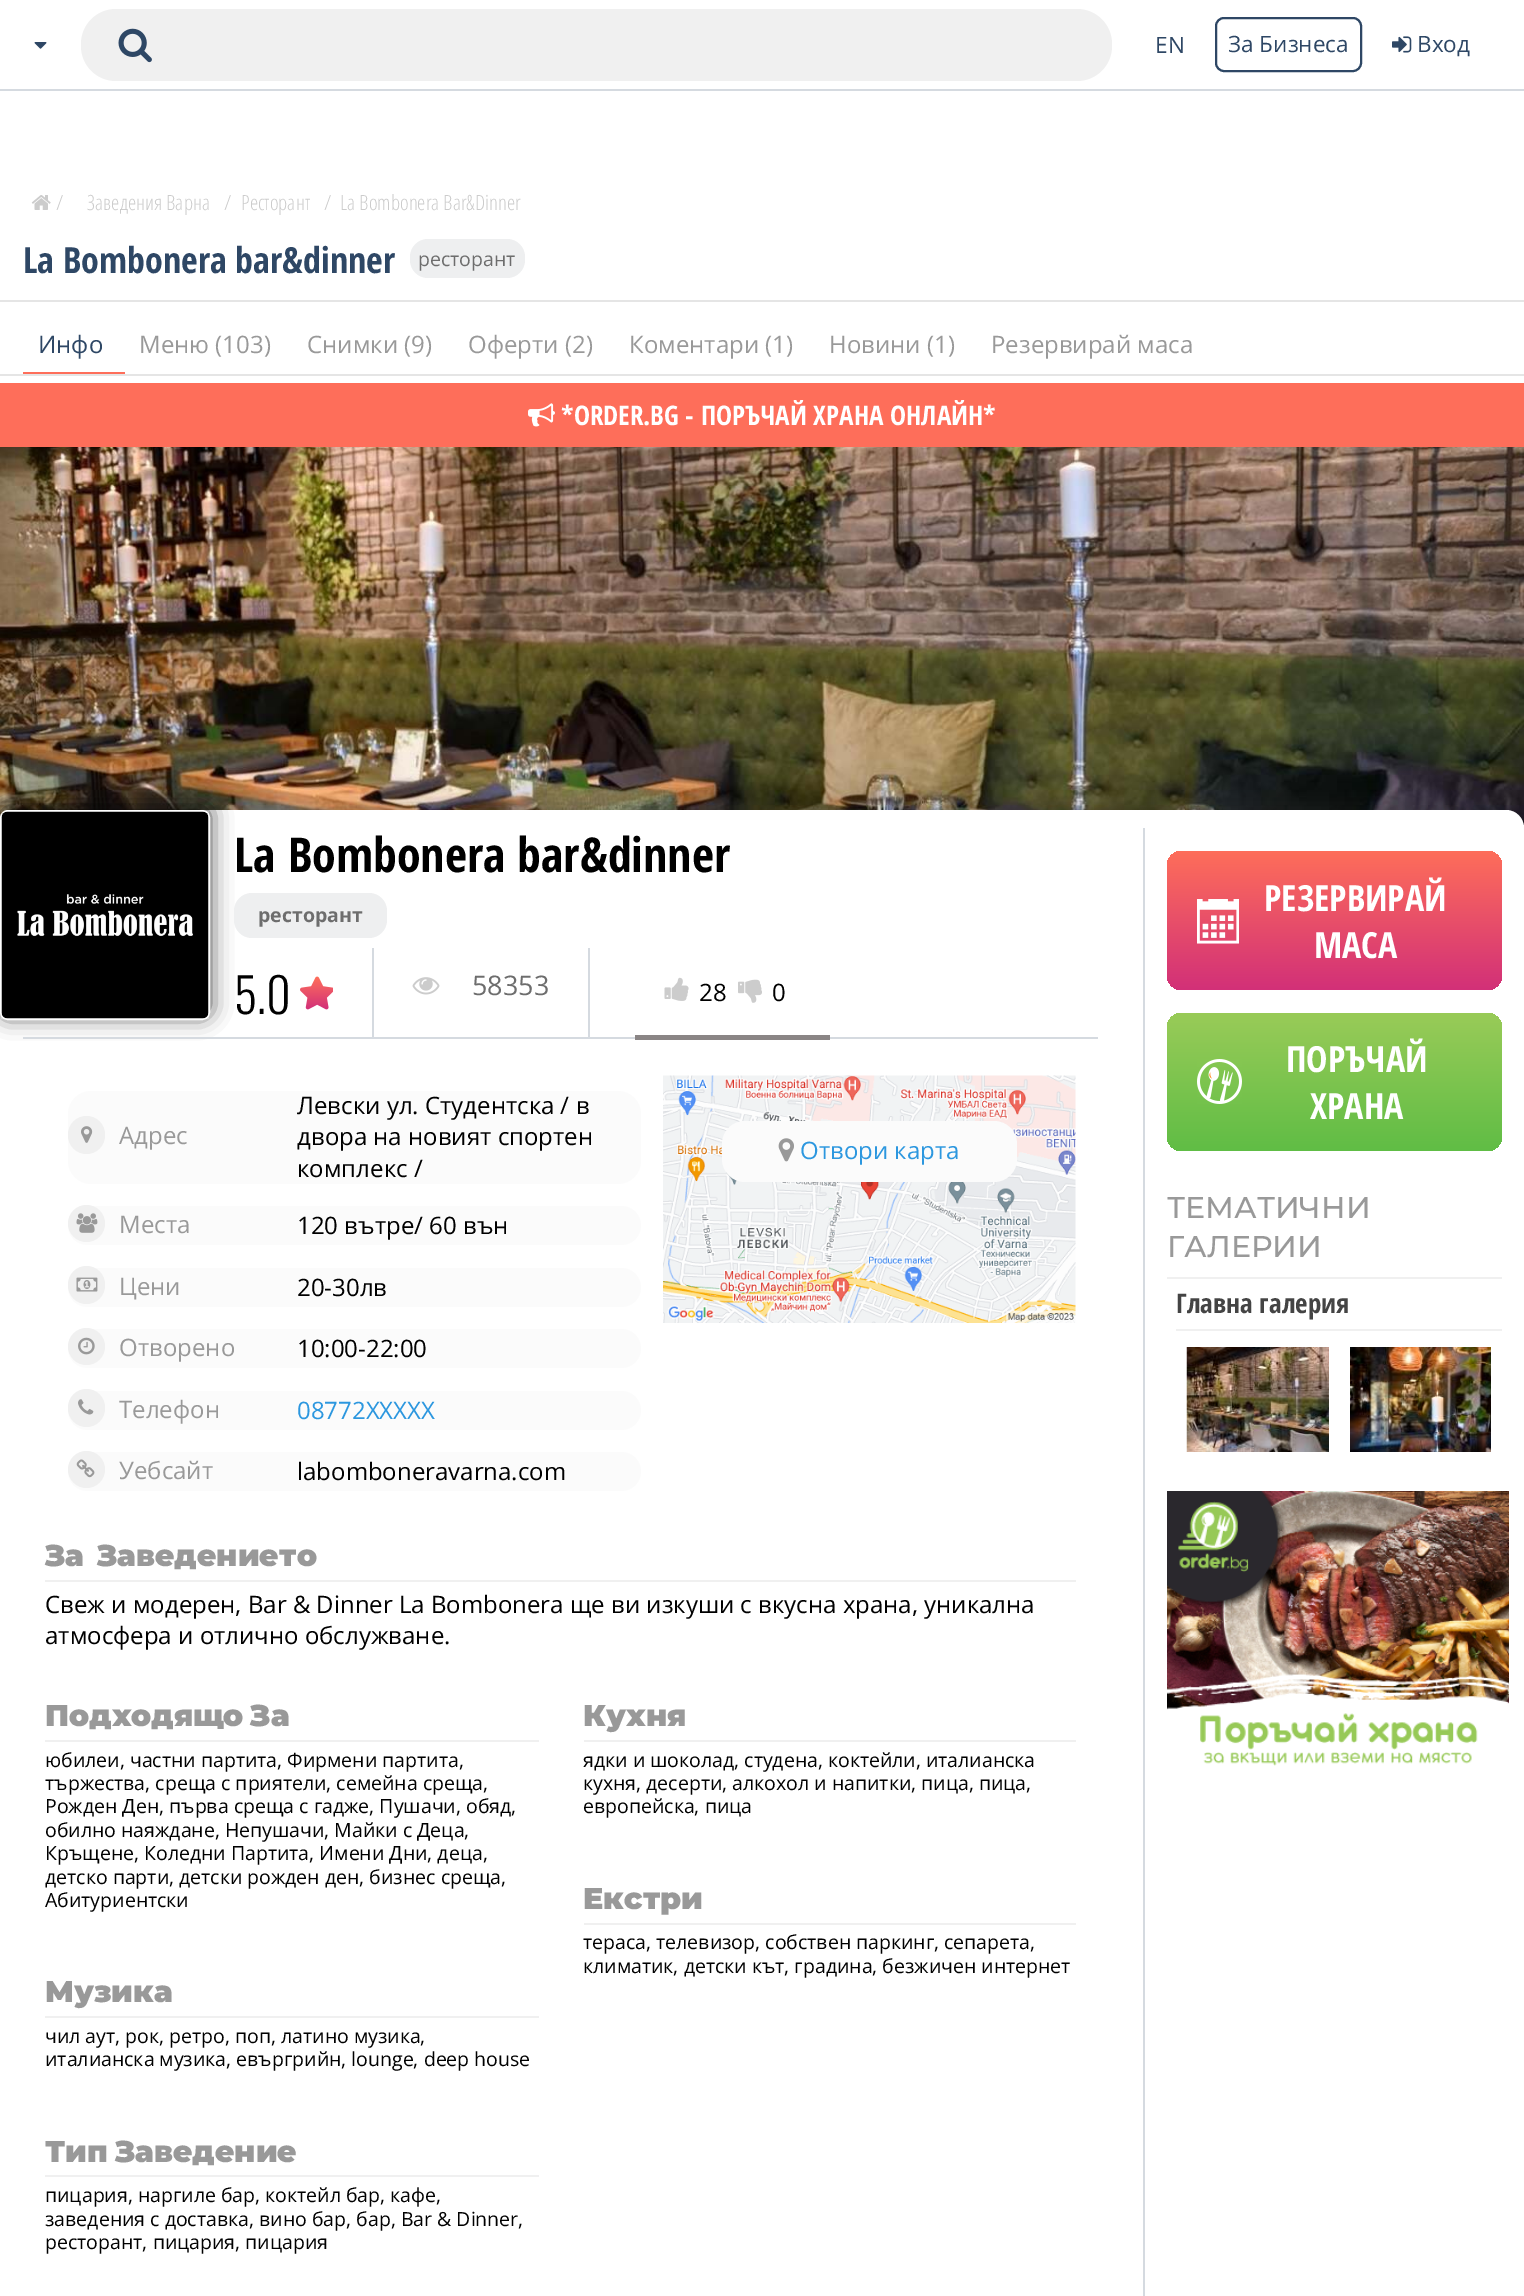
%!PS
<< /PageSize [1524 2296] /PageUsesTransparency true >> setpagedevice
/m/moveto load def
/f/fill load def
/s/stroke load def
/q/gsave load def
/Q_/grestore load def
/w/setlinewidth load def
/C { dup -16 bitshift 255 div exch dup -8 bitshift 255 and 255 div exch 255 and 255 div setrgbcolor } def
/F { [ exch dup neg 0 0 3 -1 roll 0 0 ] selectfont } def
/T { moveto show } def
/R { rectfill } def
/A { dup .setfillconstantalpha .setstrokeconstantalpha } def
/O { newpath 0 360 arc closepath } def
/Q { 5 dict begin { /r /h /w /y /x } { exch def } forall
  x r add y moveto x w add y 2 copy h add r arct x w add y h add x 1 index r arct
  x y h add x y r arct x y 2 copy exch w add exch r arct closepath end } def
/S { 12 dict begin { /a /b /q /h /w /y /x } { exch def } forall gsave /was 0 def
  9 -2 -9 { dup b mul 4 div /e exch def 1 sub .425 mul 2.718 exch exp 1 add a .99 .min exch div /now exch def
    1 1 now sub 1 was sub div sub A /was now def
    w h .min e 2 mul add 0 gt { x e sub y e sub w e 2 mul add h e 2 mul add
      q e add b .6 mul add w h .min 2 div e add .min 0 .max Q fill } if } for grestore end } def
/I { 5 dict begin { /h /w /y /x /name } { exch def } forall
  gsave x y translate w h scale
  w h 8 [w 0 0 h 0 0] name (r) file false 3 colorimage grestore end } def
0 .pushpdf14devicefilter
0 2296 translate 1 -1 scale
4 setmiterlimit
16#FFFFFF C
0 0 1524 2296 R
16#D5DAE0 C
0 89 1524 2 R
(1.rgb) 34 42 13 7 I
16#F0F0F0 C
81 9 1031 72 35 Q f
(2.rgb) 118 28 34 35 I
/OpenSans-Regular 22.5 F
16#2E4765 C
(EN) 1155 53 T
2 w
1216 18 145 53 8 Q s
(За Бизнеса) 1228 52 T
(3.rgb) 1392 36 20 17 I
(Вход) 1417 52 T
(4.rgb) 31 195 20 15 I
/OpenSansCondensed-Light 21 F
16#CCCCCC C
(/) 56 210 T
(Заведения Варна) 87 210 T
(/) 224 210 T
(Ресторант) 241 210 T
(/) 324 210 T
(La Bombonera Bar&Dinner) 340 210 T
16#FE6E5A C
0 383 1524 64 R
(5.rgb) 528 403 27 24 I
/OpenSansCondensed-Bold 27 F
16#FFFFFF C
(*ORDER.BG - ПОРЪЧАЙ ХРАНА ОНЛАЙН*) 561 425 T
(6.rgb) 0 447 1524 381 I
16#323232 C
-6 804 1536 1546 24 10 .25 S
16#FFFFFF C
0 810 1524 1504 18 Q f
16#000000 C
0 806 210 210 8 11 .75 S
16#FFFFFF C
1 811 208 208 7 Q s
(7.rgb) 1 811 208 208 I
/OpenSansCondensed-Bold 48 F
16#000000 C
(La Bombonera bar&dinner) 234 872 T
16#EEEFF0 C
234 893 153 45 18 Q f
/OpenSans-Bold 19.5 F
16#6D6D6D C
(ресторант) 258 922 T
/Oswald-Light 48 F
16#000000 C
(5.0) 234 1014 T
(8.rgb) 300 976 33 34 I
16#D5DAE0 C
23 1037 1075 2 R
372 948 2 90 R
(9.rgb) 412 977 28 18 I
/OpenSans-Regular 27 F
16#6D6D6D C
(58353) 472 995 T
16#D5DAE0 C
588 948 2 90 R
(10.rgb) 664 977 25 24 I
/OpenSans-Regular 24 F
16#000000 C
(28) 699 1001 T
(11.rgb) 738 979 24 24 I
(0) 772 1001 T
16#8A8585 C
635 1035 195 5 R
16#FBFBFB C
68 1091 573 93 23 Q f
16#F0F0F0 C
68 1116 37 38 18.5 Q f
(12.rgb) 81 1126 12 17 I
16#999999 C
(Адрес) 119 1144 T
16#000000 C
(Левски ул. Студентска / в) 297 1114 T
(двора на новият спортен) 297 1145 T
(комплекс /) 297 1177 T
16#FBFBFB C
68 1206 573 39 19.5 Q f
16#F0F0F0 C
86.5 1223.5 18.5 O f
(13.rgb) 76 1213 22 20 I
16#999999 C
(Места) 119 1233 T
16#000000 C
(120 вътре/ 60 вън) 297 1234 T
16#FBFBFB C
68 1268 573 39 19.5 Q f
16#F0F0F0 C
68 1266 37 38 18.5 Q f
(14.rgb) 76 1277 22 15 I
16#999999 C
(Цени) 119 1295 T
16#000000 C
(20-30лв) 297 1296 T
16#FBFBFB C
68 1329 573 39 19.5 Q f
16#F0F0F0 C
86.5 1346.5 18.5 O f
(15.rgb) 78 1337 17 18 I
16#999999 C
(Отворено) 119 1356 T
16#000000 C
(10:00-22:00) 297 1357 T
16#FBFBFB C
68 1391 573 39 19.5 Q f
16#F0F0F0 C
68 1389 37 38 18.5 Q f
(16.rgb) 78 1399 16 16 I
16#999999 C
(Телефон) 119 1418 T
16#2C97DF C
(08772XXXXX) 297 1419 T
16#FBFBFB C
68 1452 573 39 19.5 Q f
16#F0F0F0 C
86.5 1469.5 18.5 O f
(17.rgb) 76 1459 19 19 I
16#999999 C
(Уебсайт) 119 1479 T
16#000000 C
(labomboneravarna.com) 297 1480 T
(18.rgb) 663 1075 413 248 I
16#FBFBFB C
722 1121 295 61 23 Q f
(19.rgb) 778 1138 16 24 I
16#2C97DF C
(Отвори карта) 800 1159 T
16#F0F0F0 C
45 1580 1031 2 R
/Montserrat-Black 30 F
16#999999 C
45 1566 m 4 0 32 (За Заведението) widthshow
/OpenSans-Regular 24 F
16#000000 C
(Свеж и модерен, Bar & Dinner La Bombonera ще ви изкуши с вкусна храна, уникална) 45 1613 T
(атмосфера и отлично обслужване.) 45 1644 T
16#F0F0F0 C
45 1740 494 2 R
/Montserrat-Black 30 F
16#999999 C
45 1726 m -2 0 32 (Подходящо За) widthshow
/OpenSans-Regular 19.5 F
16#000000 C
(юбилеи, частни партита, Фирмени партита,) 45 1767 T
(тържества, среща с приятели, семейна среща,) 45 1790 T
(Рожден Ден, първа среща с гадже, Пушачи, обяд,) 45 1813 T
(обилно наяждане, Непушачи, Майки с Деца,) 45 1837 T
(Кръщене, Коледни Партита, Имени Дни, деца,) 45 1860 T
(детско парти, детски рожден ден, бизнес среща,) 45 1884 T
(Абитуриентски) 45 1907 T
16#F0F0F0 C
45 2016 494 2 R
/Montserrat-Black 30 F
16#999999 C
(Музика) 45 2002 T
/OpenSans-Regular 19.5 F
16#000000 C
(чил аут, рок, ретро, поп, латино музика,) 45 2043 T
(италианска музика, евъргрийн, lounge, deep house) 45 2066 T
16#F0F0F0 C
45 2175 494 2 R
/Montserrat-Black 30 F
16#999999 C
45 2162 m -2 0 32 (Тип Заведение) widthshow
/OpenSans-Regular 19.5 F
16#000000 C
(пицария, наргиле бар, коктейл бар, кафе,) 45 2202 T
(заведения с доставка, вино бар, бар, Bar & Dinner,) 45 2226 T
(ресторант, пицария, пицария) 45 2249 T
16#F0F0F0 C
584 1740 492 2 R
/Montserrat-Black 30 F
16#999999 C
(Кухня) 583 1726 T
/OpenSans-Regular 19.5 F
16#000000 C
(ядки и шоколад, студена, коктейли, италианска) 583 1767 T
(кухня, десерти, алкохол и напитки, пица, пица,) 583 1790 T
(европейска, пица) 583 1813 T
16#F0F0F0 C
584 1923 492 2 R
/Montserrat-Black 30 F
16#999999 C
(Екстри) 583 1909 T
/OpenSans-Regular 19.5 F
16#000000 C
(тераса, телевизор, собствен паркинг, сепарета,) 583 1949 T
(климатик, детски кът, градина, безжичен интернет) 583 1973 T
16#D5DAE0 C
1143 828 2 1468 R
q 1167 851 335 139 15 Q clip newpath
<< /ShadingType 2 /ColorSpace /DeviceRGB /Coords [1334 851 1334 990] /Extend [true true] /Function << /FunctionType 2 /Domain [0 1] /C0 [.996 .431 .353] /C1 [.824 .188 .471] /N 1 >> >> shfill Q_
(20.rgb) 1197 899 42 45 I
/OpenSansCondensed-Bold 36 F
16#FFFFFF C
(РЕЗЕРВИРАЙ) 1264 911 T
(МАСА) 1314 958 T
q 1167 1013 335 138 15 Q clip newpath
<< /ShadingType 2 /ColorSpace /DeviceRGB /Coords [1334 1013 1334 1151] /Extend [true true] /Function << /FunctionType 2 /Domain [0 1] /C0 [.6 .796 .345] /C1 [.376 .741 .271] /N 1 >> >> shfill Q_
(21.rgb) 1197 1059 45 45 I
(ПОРЪЧАЙ) 1286 1072 T
(ХРАНА) 1310 1119 T
16#F0F0F0 C
1167 1277 335 2 R
/Montserrat-Medium 30 F
16#999999 C
(ТЕМАТИЧНИ) 1167 1218 T
(ГАЛЕРИИ) 1167 1257 T
16#F0F0F0 C
1176 1329 326 2 R
/OpenSansCondensed-Bold 27 F
16#444444 C
(Главна галерия) 1176 1313 T
(22.rgb) 1186 1347 143 105 I
(23.rgb) 1350 1347 141 105 I
(24.rgb) 1167 1491 342 275 I
/OpenSansCondensed-Bold 36 F
16#2E4765 C
(La Bombonera bar&dinner) 23 273 T
16#EEEFF0 C
410 239 115 39 18 Q f
/OpenSans-Regular 19.5 F
16#6D6D6D C
(ресторант) 418 266 T
16#E5E5E5 C
0 300 1524 2 R
/OpenSans-Regular 24 F
16#2E4765 C
(Инфо) 38 353 T
16#FE6E5A C
23 372 102 2 R
16#999999 C
(Меню \(103\)) 139 353 T
(Снимки \(9\)) 307 353 T
(Оферти \(2\)) 468 353 T
(Коментари \(1\)) 629 353 T
(Новини \(1\)) 829 353 T
(Резервирай маса) 991 353 T
16#E5E5E5 C
0 374 1524 2 R
.poppdf14devicefilter showpage
